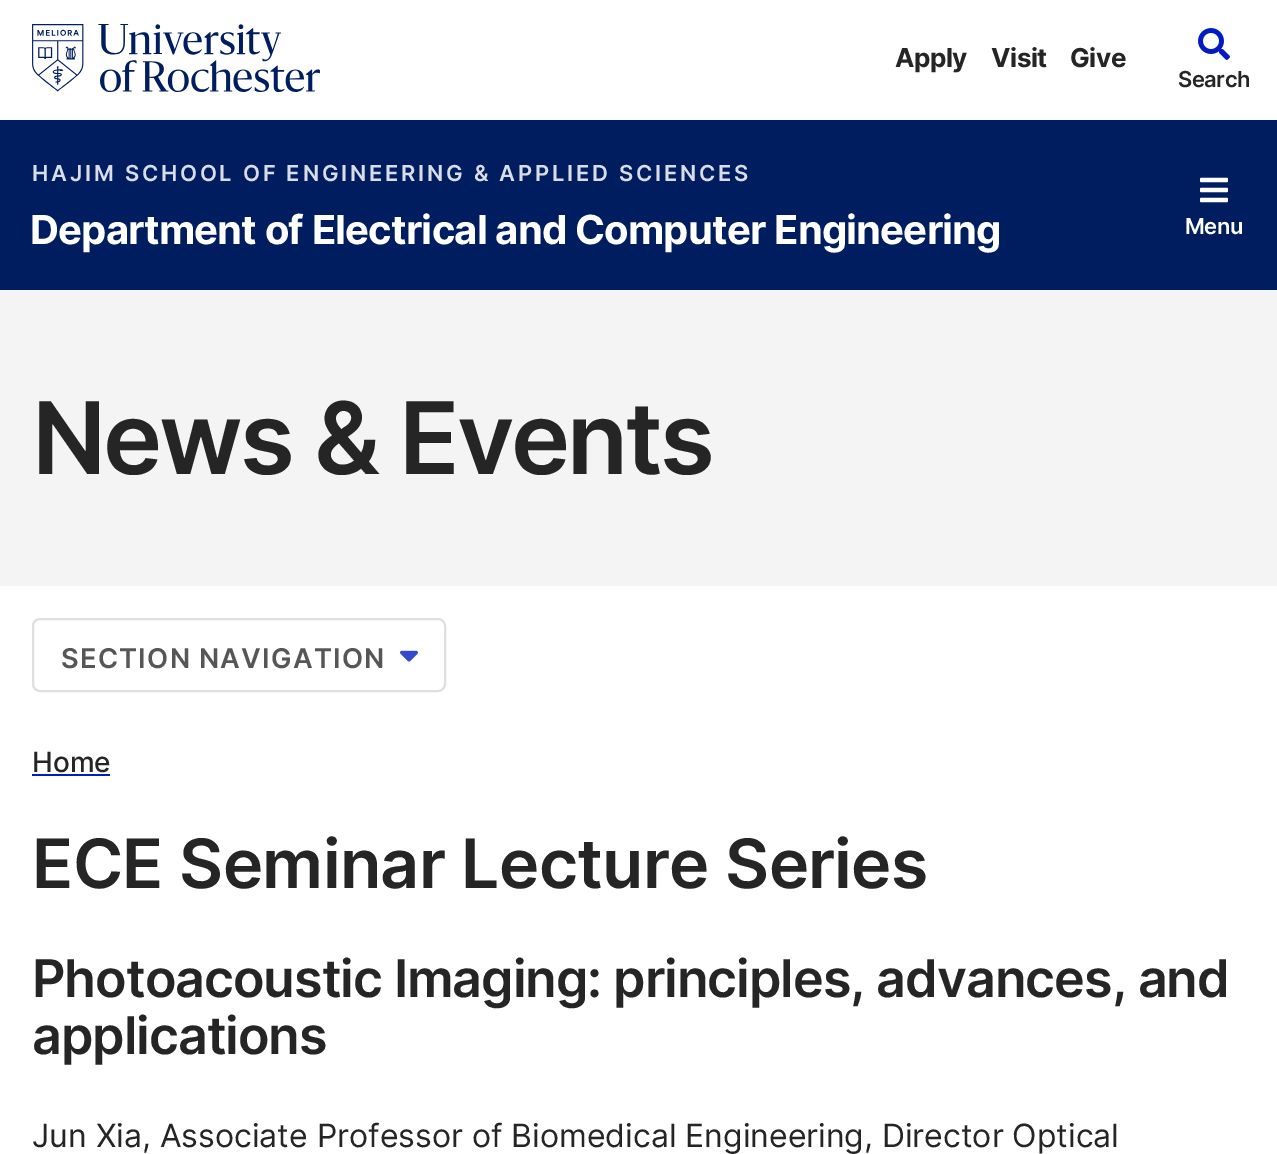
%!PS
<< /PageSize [1277 1154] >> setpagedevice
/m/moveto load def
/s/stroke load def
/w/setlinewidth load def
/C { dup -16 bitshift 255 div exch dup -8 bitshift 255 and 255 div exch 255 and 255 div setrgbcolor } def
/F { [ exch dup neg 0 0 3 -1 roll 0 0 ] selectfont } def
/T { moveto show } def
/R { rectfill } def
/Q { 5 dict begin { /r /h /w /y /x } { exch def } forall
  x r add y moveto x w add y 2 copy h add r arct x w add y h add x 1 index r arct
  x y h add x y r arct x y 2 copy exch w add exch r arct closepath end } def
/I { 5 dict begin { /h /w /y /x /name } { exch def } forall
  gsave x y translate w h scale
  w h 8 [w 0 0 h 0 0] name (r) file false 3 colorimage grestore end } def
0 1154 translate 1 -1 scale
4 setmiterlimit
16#FFFFFF C
0 0 1277 1154 R
16#001E5F C
0 120 1277 170 R
(1.rgb) 32 24 288 68 I
/Inter-Bold 26 F
16#252525 C
895 67 m -.5 0 (Apply) ashow
991 67 m -.5 0 (Visit) ashow
1070 67 m -.5 0 (Give) ashow
(2.rgb) 1198 28 32 32 I
/Inter-SemiBold 22 F
1178 87 m -.5 0 (Search) ashow
16#D9DDE7 C
32 181 m 2.75 0 (HAJIM SCHOOL OF ENGINEERING & APPLIED SCIENCES) ashow
/Inter-Bold 40 F
16#FFFFFF C
30 244 m -.8 0 (Department of Electrical and Computer Engineering) ashow
(3.rgb) 1200 177 28 26 I
/Inter-SemiBold 22 F
1185 234 m -.5 0 (Menu) ashow
16#F4F4F4 C
0 290 1277 296 R
/Inter-SemiBold 100 F
16#252525 C
32 474 m -3 0 (News & Events) ashow
16#DFDFDF C
2 w
33 619 412 72 7 Q s
/Inter-SemiBold 27.25 F
16#565656 C
61 668 m 1.25 0 (SECTION NAVIGATION) ashow
(4.rgb) 400 650 18 12 I
/Inter-Medium 28 F
16#252525 C
(Home) 32 772 T
16#021BC3 C
32 774 78 2 R
/Inter-SemiBold 68 F
16#252525 C
32 888 m -.7 0 (ECE Seminar Lecture Series) ashow
/Inter-SemiBold 52 F
32 997 m -1.05 0 (Photoacoustic Imaging: principles, advances, and) ashow
32 1054 m -1.05 0 (applications) ashow
/Inter-Regular 32 F
(Jun Xia, Associate Professor of Biomedical Engineering, Director Optical) 32 1147 T
showpage
